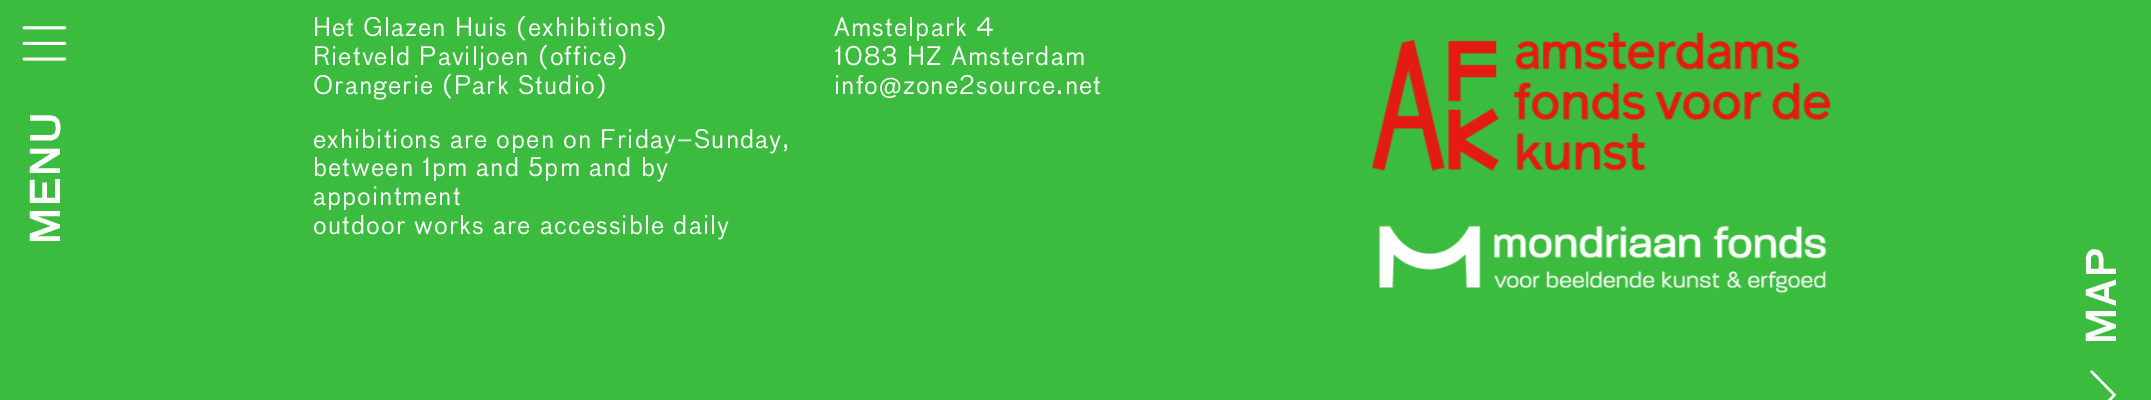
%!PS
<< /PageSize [2151 400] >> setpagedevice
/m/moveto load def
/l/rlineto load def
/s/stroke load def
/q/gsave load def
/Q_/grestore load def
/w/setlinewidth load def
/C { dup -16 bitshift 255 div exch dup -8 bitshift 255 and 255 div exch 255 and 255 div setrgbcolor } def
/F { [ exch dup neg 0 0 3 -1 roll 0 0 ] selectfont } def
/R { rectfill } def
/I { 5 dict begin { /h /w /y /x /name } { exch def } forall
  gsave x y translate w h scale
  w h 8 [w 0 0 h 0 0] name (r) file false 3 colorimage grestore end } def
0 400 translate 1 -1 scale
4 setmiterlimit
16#3BBC3E C
0 0 2151 400 R
/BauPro-Regular 25 F
16#FFFFFF C
313 36 m 1.1 0 (Het Glazen Huis \(exhibitions\)) ashow
313 65 m 1.1 0 (Rietveld Paviljoen \(office\)) ashow
313 94 m 1.1 0 (Orangerie \(Park Studio\)) ashow
313 148 m 1.1 0 (exhibitions are open on Friday–Sunday,) ashow
313 176 m 1.1 0 (between 1pm and 5pm and by) ashow
313 205 m 1.1 0 (appointment) ashow
313 234 m 1.1 0 (outdoor works are accessible daily) ashow
834 36 m 1.1 0 (Amstelpark 4) ashow
834 65 m 1.1 0 (1083 HZ Amsterdam) ashow
834 94 m 1.1 0 (info@zone2source.net) ashow
(1.rgb) 1372 32 459 140 I
(2.rgb) 1379 225 448 68 I
(3.rgb) 22 26 45 35 I
/BauPro-Medium 40 F
q 60 245 translate -90 rotate 0 0 m (MENU) show Q_
q 2116 345 translate -90 rotate 0 0 m (MAP) show Q_
2.4 w
2091 371 m 23.5 24 l -23.5 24 l s
showpage
